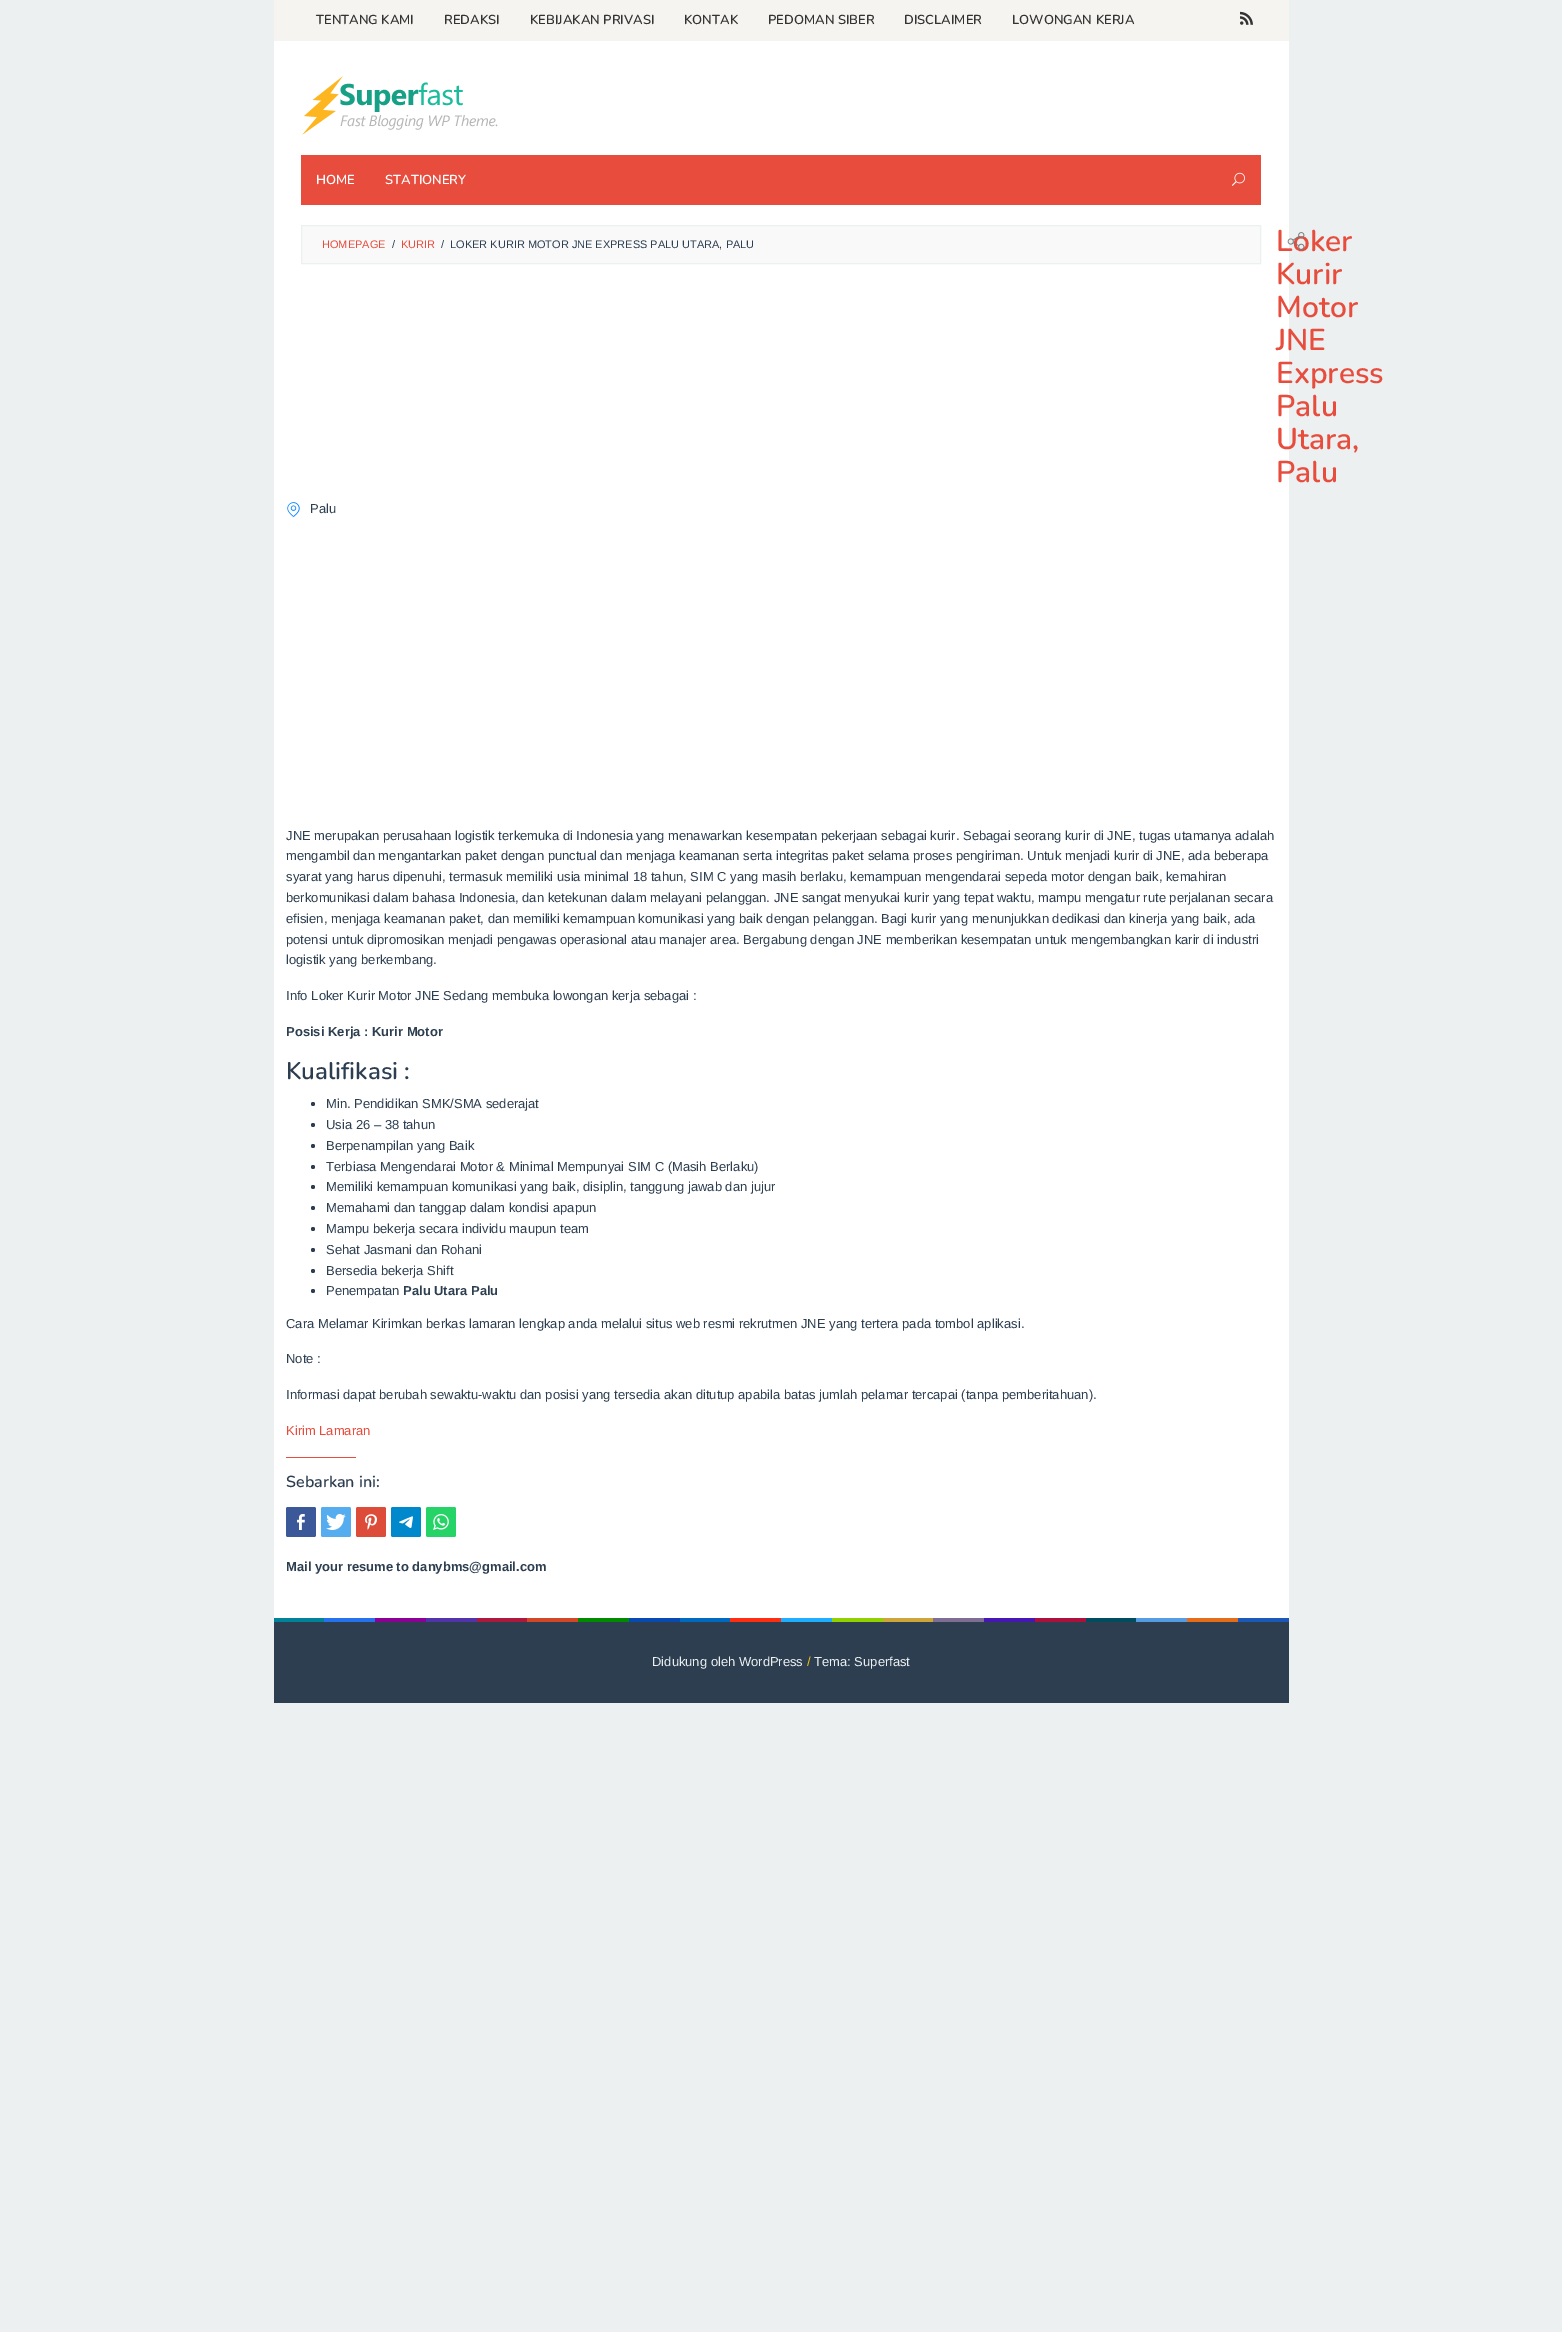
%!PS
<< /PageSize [1562 2332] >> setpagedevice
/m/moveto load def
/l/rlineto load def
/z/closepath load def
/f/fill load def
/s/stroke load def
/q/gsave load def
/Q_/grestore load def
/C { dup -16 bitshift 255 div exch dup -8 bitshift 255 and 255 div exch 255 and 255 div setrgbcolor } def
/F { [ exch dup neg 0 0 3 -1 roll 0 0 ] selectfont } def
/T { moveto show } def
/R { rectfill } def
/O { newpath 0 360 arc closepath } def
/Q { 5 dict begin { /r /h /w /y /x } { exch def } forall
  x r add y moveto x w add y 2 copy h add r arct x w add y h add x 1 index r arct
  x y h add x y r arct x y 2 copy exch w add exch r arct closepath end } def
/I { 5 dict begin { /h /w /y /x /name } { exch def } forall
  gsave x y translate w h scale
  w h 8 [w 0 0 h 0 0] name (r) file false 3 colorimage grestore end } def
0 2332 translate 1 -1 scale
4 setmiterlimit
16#ECF0F1 C
0 0 1562 2332 R
16#FFFFFF C
274 41 1015 1577 R
16#F6F4F1 C
274 0 1015 41 R
/Nunito-SemiBold 13 F
16#333333 C
(TENTANG KAMI) 316 24 T
(REDAKSI) 444 24 T
(KEBIJAKAN PRIVASI) 530 24 T
(KONTAK) 684 24 T
(PEDOMAN SIBER) 768 24 T
(DISCLAIMER) 904 24 T
(LOWONGAN KERJA) 1012 24 T
(1.rgb) 1240 11 13 14 I
(2.rgb) 302 76 196 59 I
16#E74C3C C
301 155 960 50 R
16#FFFFFF C
(HOME) 316 184 T
(STATIONERY) 385 184 T
(3.rgb) 1232 172 13 14 I
/Nunito-SemiBold 30 F
16#E74C3C C
(Loker) 1276 251 T
(Kurir) 1276 284 T
(Motor) 1276 317 T
(JNE) 1276 350 T
(Express) 1276 383 T
(Palu) 1276 416 T
(Utara,) 1276 449 T
(Palu) 1276 482 T
(4.rgb) 1287 232 18 18 I
(5.rgb) 287 502 13 15 I
/LiberationSans-Regular 13 F
16#2C3E50 C
(Palu) 310 513 T
(JNE merupakan perusahaan logistik terkemuka di Indonesia yang menawarkan kesempatan pekerjaan sebagai kurir. Sebagai seorang kurir di JNE, tugas utamanya adalah) 286 840 T
(mengambil dan mengantarkan paket dengan punctual dan menjaga keamanan serta integritas paket selama proses pengiriman. Untuk menjadi kurir di JNE, ada beberapa) 286 860 T
(syarat yang harus dipenuhi, termasuk memiliki usia minimal 18 tahun, SIM C yang masih berlaku, kemampuan mengendarai sepeda motor dengan baik, kemahiran) 286 881 T
(berkomunikasi dalam bahasa Indonesia, dan ketekunan dalam melayani pelanggan. JNE sangat menyukai kurir yang tepat waktu, mampu mengatur rute perjalanan secara) 286 902 T
(efisien, menjaga keamanan paket, dan memiliki kemampuan komunikasi yang baik dengan pelanggan. Bagi kurir yang menunjukkan dedikasi dan kinerja yang baik, ada) 286 923 T
(potensi untuk dipromosikan menjadi pengawas operasional atau manajer area. Bergabung dengan JNE memberikan kesempatan untuk mengembangkan karir di industri) 286 944 T
(logistik yang berkembang.) 286 964 T
(Info Loker Kurir Motor JNE Sedang membuka lowongan kerja sebagai :) 286 1000 T
/LiberationSans-Bold 13 F
(Posisi Kerja : Kurir Motor) 286 1036 T
/Nunito-SemiBold 24 F
(Kualifikasi :) 286 1079 T
313 1104 2 O f
/LiberationSans-Regular 13 F
(Min. Pendidikan SMK/SMA sederajat) 326 1108 T
313 1125 2 O f
(Usia 26 – 38 tahun) 326 1129 T
313 1146 2 O f
(Berpenampilan yang Baik) 326 1150 T
313 1167 2 O f
(Terbiasa Mengendarai Motor & Minimal Mempunyai SIM C \(Masih Berlaku\)) 326 1171 T
313 1187 2 O f
(Memiliki kemampuan komunikasi yang baik, disiplin, tanggung jawab dan jujur) 326 1191 T
313 1208 2 O f
(Memahami dan tanggap dalam kondisi apapun) 326 1212 T
313 1229 2 O f
(Mampu bekerja secara individu maupun team) 326 1233 T
313 1250 2 O f
(Sehat Jasmani dan Rohani) 326 1254 T
313 1271 2 O f
(Bersedia bekerja Shift) 326 1275 T
313 1291 2 O f
(Penempatan) 326 1295 T
/LiberationSans-Bold 13 F
(Palu Utara Palu) 403 1295 T
/LiberationSans-Regular 13 F
(Cara Melamar Kirimkan berkas lamaran lengkap anda melalui situs web resmi rekrutmen JNE yang tertera pada tombol aplikasi.) 286 1328 T
(Note :) 286 1363 T
(Informasi dapat berubah sewaktu-waktu dan posisi yang tersedia akan ditutup apabila batas jumlah pelamar tercapai \(tanpa pemberitahuan\).) 286 1399 T
16#E74C3C C
(Kirim Lamaran) 286 1435 T
286 1457 70 1 R
/Nunito-SemiBold 16 F
16#2C3E50 C
(Sebarkan ini:) 286 1487 T
16#3B5998 C
286 1507 30 30 2 Q f
(6.rgb) 297 1514 8 16 I
16#55ACEE C
321 1507 30 30 2 Q f
(7.rgb) 326 1514 20 16 I
16#DD4B39 C
356 1507 30 30 2 Q f
(8.rgb) 365 1514 12 16 I
16#0088CC C
391 1507 30 30 2 Q f
(9.rgb) 399 1516 14 12 I
16#25D366 C
426 1507 30 30 2 Q f
(10.rgb) 433 1514 16 16 I
/LiberationSans-Bold 13 F
16#2C3E50 C
(Mail your resume to danybms@gmail.com) 286 1571 T
16#F9F9F9 C
301.5 225.5 m 959 0 l 0 38 l -959 0 l z q f Q_
16#ECF0F1 C
s
/LiberationSans-Regular 11 F
16#E74C3C C
(HOMEPAGE) 322 248 T
16#2C3E50 C
(/) 392 248 T
16#E74C3C C
(KURIR) 401 248 T
16#2C3E50 C
(/) 441 248 T
(LOKER KURIR MOTOR JNE EXPRESS PALU UTARA, PALU) 450 248 T
16#008299 C
274 1618 50 4 R
16#2672EC C
324 1618 51 4 R
16#8C0095 C
375 1618 51 4 R
16#5133AB C
426 1618 51 4 R
16#AC193D C
477 1618 50 4 R
16#D24726 C
527 1618 51 4 R
16#008A00 C
578 1618 51 4 R
16#094AB2 C
629 1618 51 4 R
16#006AC1 C
680 1618 50 4 R
16#FF2E12 C
730 1618 51 4 R
16#1FAEFF C
781 1618 51 4 R
16#91D100 C
832 1618 51 4 R
16#CEA539 C
883 1618 50 4 R
16#7F6E94 C
933 1618 51 4 R
16#4617B4 C
984 1618 51 4 R
16#AD103C C
1035 1618 51 4 R
16#004D60 C
1086 1618 50 4 R
16#569CE3 C
1136 1618 51 4 R
16#E56C19 C
1187 1618 51 4 R
16#1B58B8 C
1238 1618 51 4 R
16#2C3E50 C
274 1622 1015 81 R
/LiberationSans-Regular 13 F
16#ECF0F1 C
(Didukung oleh WordPress) 652 1666 T
16#F1C40F C
(/) 807 1666 T
16#ECF0F1 C
(Tema: Superfast) 814 1666 T
showpage
